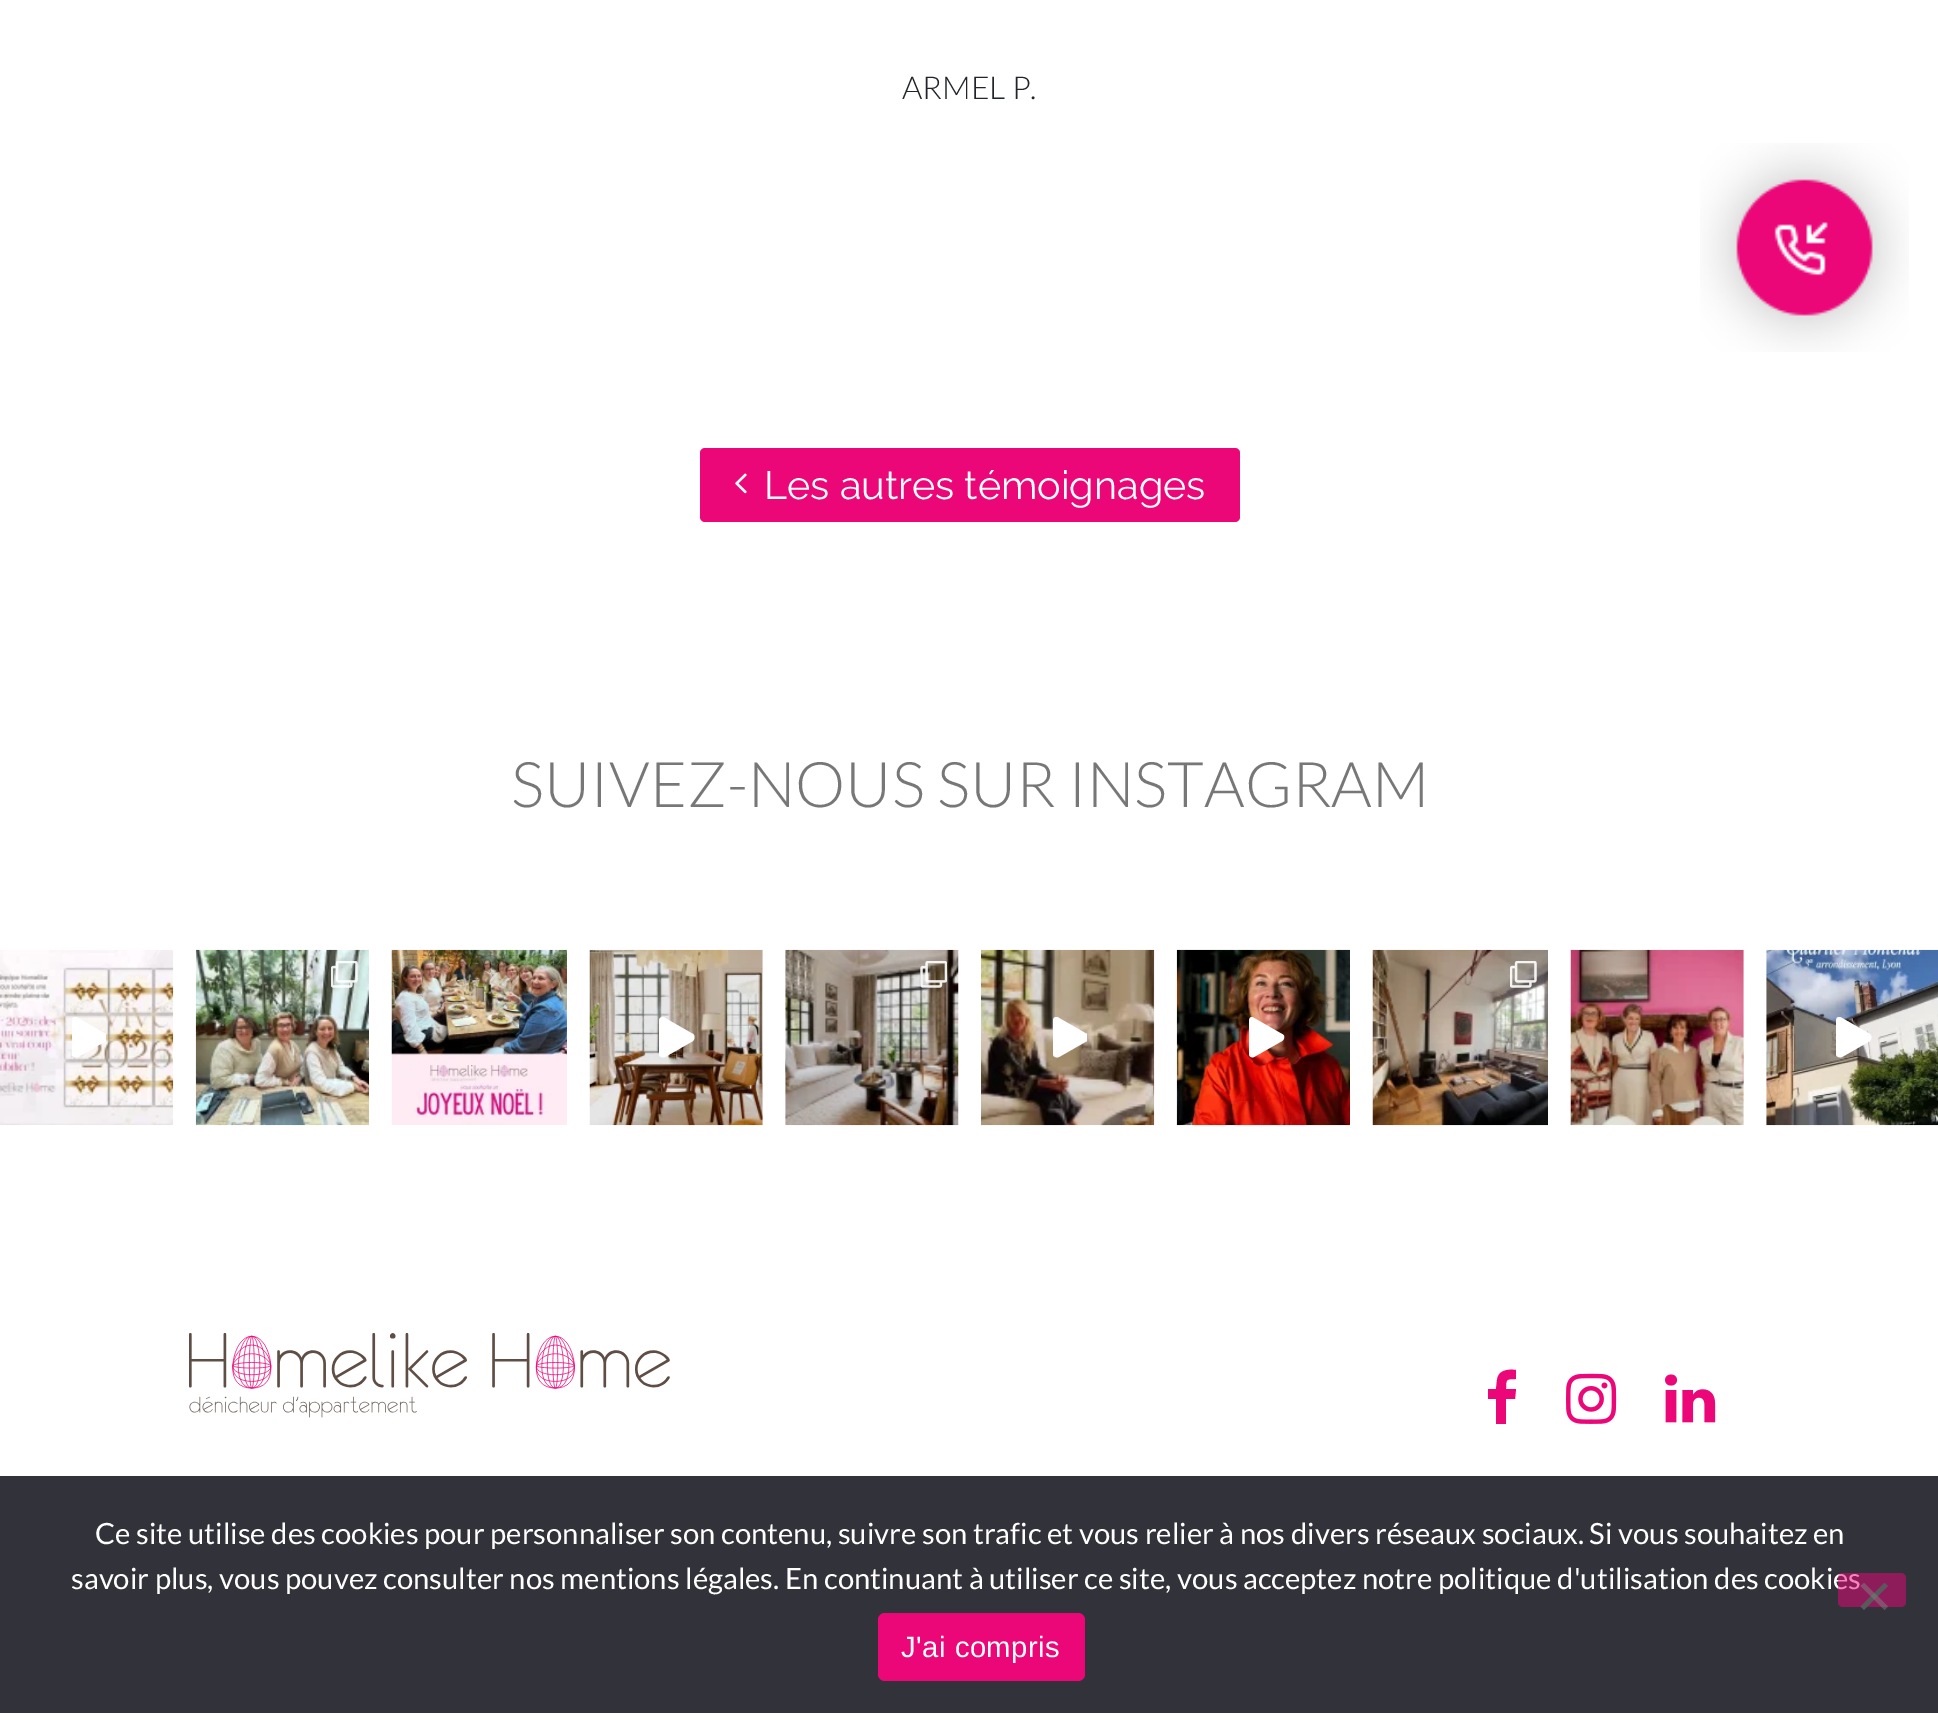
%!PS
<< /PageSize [1938 1713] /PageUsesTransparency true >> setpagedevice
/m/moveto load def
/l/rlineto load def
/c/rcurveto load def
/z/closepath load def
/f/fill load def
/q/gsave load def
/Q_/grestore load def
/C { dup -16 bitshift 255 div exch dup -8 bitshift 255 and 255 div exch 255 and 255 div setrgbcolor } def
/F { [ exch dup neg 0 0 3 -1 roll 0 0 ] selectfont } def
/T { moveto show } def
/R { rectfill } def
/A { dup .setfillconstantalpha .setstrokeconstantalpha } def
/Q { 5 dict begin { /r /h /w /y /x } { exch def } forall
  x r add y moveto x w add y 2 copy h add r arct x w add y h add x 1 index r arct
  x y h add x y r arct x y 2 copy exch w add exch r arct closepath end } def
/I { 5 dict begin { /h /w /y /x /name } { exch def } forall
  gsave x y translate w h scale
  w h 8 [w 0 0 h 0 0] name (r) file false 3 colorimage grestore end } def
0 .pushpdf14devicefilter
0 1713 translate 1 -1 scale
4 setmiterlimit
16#FFFFFF C
0 0 1938 1713 R
/Lato-Light 31.5 F
16#212529 C
(ARMEL P.) 902 99 T
16#EC0779 C
700 448 540 74 5 Q f
(1.rgb) 735 473 12 21 I
/Raleway-Regular 39.6 F
16#FFFFFF C
(Les autres témoignages) 764 499 T
/Lato-Light 63 F
16#777777 C
(SUIVEZ-NOUS SUR INSTAGRAM) 511 807 T
(2.rgb) 0 950 174 175 I
q
72 1017 34 41 rectclip
16#FFFFFF C
106 1034 m -28 -16 l -3 -2 -6 -1 -6 3 c 0 33 l 0 3 3 4 6 3 c 28 -16 l 2 -2 2 -6 0 -7 c z f
Q_
(3.rgb) 195 949 174 177 I
(4.rgb) 331 961 27 27 I
(5.rgb) 391 949 176 176 I
(6.rgb) 589 949 174 177 I
16#FFFFFF C
693 1034 m -28 -16 l -2 -2 -6 -1 -6 3 c 0 33 l 0 3 3 4 6 3 c 28 -16 l 2 -2 2 -6 0 -7 c z f
(7.rgb) 785 949 174 177 I
(8.rgb) 920 961 27 27 I
(9.rgb) 981 949 174 177 I
q
1053 1017 34 41 rectclip
1087 1034 m -28 -16 l -3 -2 -6 -1 -6 3 c 0 33 l 0 3 3 4 6 3 c 28 -16 l 2 -2 2 -6 0 -7 c z f
Q_
(10.rgb) 1176 949 174 177 I
1282 1034 m -28 -16 l -2 -2 -5 -1 -5 3 c 0 33 l 0 3 3 4 5 3 c 28 -16 l 3 -2 3 -6 0 -7 c z f
(11.rgb) 1372 949 176 177 I
(12.rgb) 1510 961 27 27 I
(13.rgb) 1570 949 174 177 I
(14.rgb) 1766 949 172 177 I
1870 1034 m -28 -16 l -3 -2 -6 -1 -6 3 c 0 33 l 0 3 3 4 6 3 c 28 -16 l 2 -2 2 -6 0 -7 c z f
(15.rgb) 189 1333 481 85 I
16#EC0779 C
1516 1370 m 0 9 l -10 0 -10 0 -10 10 c 10 0 l -1 10 l -9 0 l 0 25 l -10 0 l 0 -25 l -8 0 l 0 -10 l 8 0 l 1 -9 l 1 -10 11 -11 19 -10 c z f
(16.rgb) 1566 1373 51 51 I
(17.rgb) 1665 1374 51 49 I
(18.rgb) 1700 143 209 209 I
16#32323A C
0 1476 1938 237 R
/Lato-Regular 29.25 F
16#FFFFFF C
(Ce site utilise des cookies pour personnaliser son contenu, suivre son trafic et vous relier à nos divers réseaux sociaux. Si vous souhaitez en) 95 1544 T
(savoir plus, vous pouvez consulter nos mentions légales. En continuant à utiliser ce site, vous acceptez notre politique d'utilisation des cookies) 71 1589 T
0.5 A
16#EC0779 C
1838 1573 68 34 5 Q f
1 A
16#59595D C
1884.5 1583 m 3.5 3 l -24 24 l -3.5 -3.5 l z f
0.5 A
16#808080 C
1860.5 1586 m 3.5 -3 l 24 23.5 l -3.5 3.5 l z f
1 A
16#EC0779 C
878 1613 207 68 7 Q f
/LiberationSans-Regular 29.25 F
16#FFFFFF C
901 1657 m .5 0 (J'ai compris) ashow
.poppdf14devicefilter showpage
